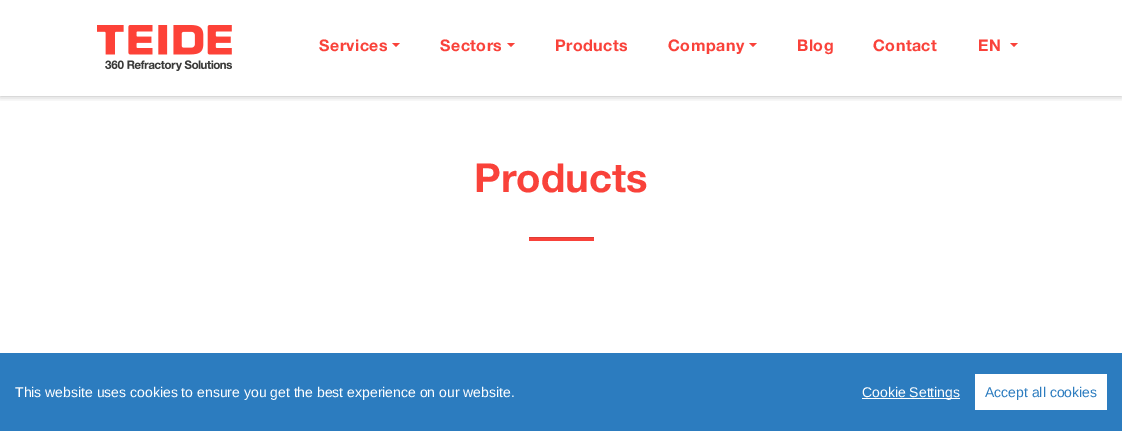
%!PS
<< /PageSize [1122 431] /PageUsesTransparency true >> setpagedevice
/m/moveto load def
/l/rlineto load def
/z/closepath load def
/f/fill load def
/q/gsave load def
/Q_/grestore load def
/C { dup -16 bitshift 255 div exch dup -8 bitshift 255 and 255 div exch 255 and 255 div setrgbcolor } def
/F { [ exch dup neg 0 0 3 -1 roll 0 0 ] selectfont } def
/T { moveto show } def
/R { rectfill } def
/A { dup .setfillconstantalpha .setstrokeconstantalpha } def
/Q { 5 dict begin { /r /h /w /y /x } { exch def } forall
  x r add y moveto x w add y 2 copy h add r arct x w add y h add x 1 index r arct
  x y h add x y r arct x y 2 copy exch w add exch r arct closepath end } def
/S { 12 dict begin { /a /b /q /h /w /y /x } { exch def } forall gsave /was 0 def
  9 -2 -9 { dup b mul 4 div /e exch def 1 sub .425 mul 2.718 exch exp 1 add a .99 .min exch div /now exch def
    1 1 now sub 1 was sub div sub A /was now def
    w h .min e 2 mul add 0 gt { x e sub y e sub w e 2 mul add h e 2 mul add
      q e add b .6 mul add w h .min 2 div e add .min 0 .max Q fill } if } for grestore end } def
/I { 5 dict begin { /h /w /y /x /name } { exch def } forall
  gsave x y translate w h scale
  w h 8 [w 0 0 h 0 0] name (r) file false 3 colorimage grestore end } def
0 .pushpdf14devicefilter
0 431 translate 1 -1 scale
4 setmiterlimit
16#FFFFFF C
0 0 1122 431 R
q
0 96 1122 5 rectclip
16#000000 C
0 0 1122 96 0 3.5 .3 S
Q_
(1.rgb) 97 25 135 46 I
/HelveticaNeue-Bold 16 F
16#F9423A C
319 51 m .5 0 (Services) ashow
392 43 m 8 0 l -4 4 l z f
440 51 m .5 0 (Sectors) ashow
507 43 m 8 0 l -4 4 l z f
555 51 m .5 0 (Products) ashow
668 51 m .5 0 (Company) ashow
749 43 m 8 0 l -4 4 l z f
797 51 m .5 0 (Blog) ashow
873 51 m .5 0 (Contact) ashow
978 51 m .5 0 (EN) ashow
1010 43 m 8 0 l -4 4 l z f
/HelveticaNeue-Bold 40 F
(Products) 474 192 T
529 238 65 3 R
16#E03B34 C
529 237 65 1 R
16#2C7CBF C
0 353 1122 78 R
/LiberationSans-Regular 14 F
16#FFFFFF C
(This website uses cookies to ensure you get the best experience on our website.) 15 397 T
862 398 98 1 R
(Cookie Settings) 862 397 T
975 374 132 36 R
16#2C7CBF C
(Accept all cookies) 985 397 T
.poppdf14devicefilter showpage
